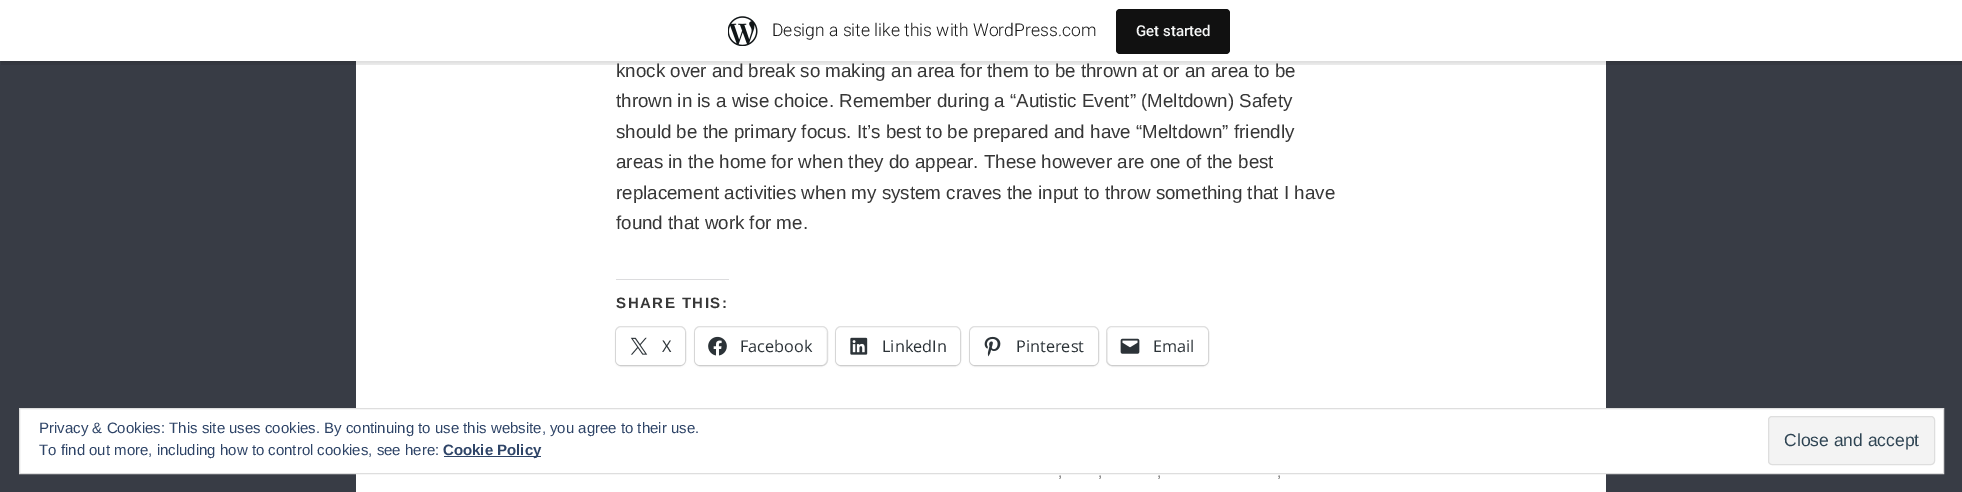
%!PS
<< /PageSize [1962 492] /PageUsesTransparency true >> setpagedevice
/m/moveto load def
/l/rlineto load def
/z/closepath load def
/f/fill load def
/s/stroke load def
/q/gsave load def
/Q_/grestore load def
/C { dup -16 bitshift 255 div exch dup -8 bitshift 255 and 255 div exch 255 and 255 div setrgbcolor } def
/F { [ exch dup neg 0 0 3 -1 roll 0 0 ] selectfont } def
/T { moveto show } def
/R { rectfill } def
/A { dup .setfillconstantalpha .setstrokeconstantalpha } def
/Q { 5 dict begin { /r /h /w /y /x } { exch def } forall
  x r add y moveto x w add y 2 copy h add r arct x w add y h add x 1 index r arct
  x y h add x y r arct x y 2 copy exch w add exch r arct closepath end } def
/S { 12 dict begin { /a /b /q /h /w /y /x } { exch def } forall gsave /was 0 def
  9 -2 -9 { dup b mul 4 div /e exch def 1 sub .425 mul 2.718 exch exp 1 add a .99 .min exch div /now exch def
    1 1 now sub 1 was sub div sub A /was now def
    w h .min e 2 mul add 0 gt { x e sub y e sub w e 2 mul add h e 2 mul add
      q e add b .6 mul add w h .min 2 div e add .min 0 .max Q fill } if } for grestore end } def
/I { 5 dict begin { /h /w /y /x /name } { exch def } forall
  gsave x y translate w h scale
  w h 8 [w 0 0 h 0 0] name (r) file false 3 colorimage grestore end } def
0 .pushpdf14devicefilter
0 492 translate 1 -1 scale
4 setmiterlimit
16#383C45 C
0 0 1962 492 R
16#FFFFFF C
356 61 1250 431 R
16#000000 C
0 1 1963 62 0 1 .05 S
0.08 A
1 61 m 0 4 l 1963 0 l 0 -61 l -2 0 l 0 57 l z f
1 A
16#FFFFFF C
0 0 1962 61 R
(1.rgb) 728 16 30 30 I
/Roboto-Light 17.5 F
16#171717 C
(Design a site like this with WordPress.com) 772 36 T
16#111111 C
1116 9 114 45 4 Q f
/Roboto-Medium 15 F
16#F6F7F7 C
(Get started) 1136 36 T
/LiberationSans-Regular 18.75 F
16#373737 C
(knock over and break so making an area for them to be thrown at or an area to be) 616 77 T
(thrown in is a wise choice. Remember during a “Autistic Event” \(Meltdown\) Safety) 616 107 T
(should be the primary focus. It’s best to be prepared and have “Meltdown” friendly) 616 138 T
(areas in the home for when they do appear. These however are one of the best) 616 168 T
(replacement activities when my system craves the input to throw something that I have) 616 199 T
(found that work for me.) 616 229 T
16#DCDCDE C
616 279 113 1 R
/LiberationSans-Bold 15 F
16#373737 C
616 308 m 1.5 0 (SHARE THIS:) ashow
16#E0E0E0 C
615.5 326.5 70 39 5.5 Q s
16#000000 C
616 329 69 37 5 1 .12 S
16#FFFFFF C
616 328 69 37 5 Q f
(2.rgb) 630 337 18 18 I
/OpenSans-Regular 16.25 F
16#2C3338 C
(X) 662 352 T
16#E0E0E0 C
694.5 326.5 133 39 5.5 Q s
16#000000 C
695 329 131 37 5 1 .12 S
16#FFFFFF C
695 328 131 37 5 Q f
(3.rgb) 708 336 19 20 I
16#2C3338 C
(Facebook) 740 352 T
16#E0E0E0 C
835.5 326.5 125 39 5.5 Q s
16#000000 C
836 329 124 37 5 1 .12 S
16#FFFFFF C
836 328 124 37 5 Q f
(4.rgb) 850 337 18 18 I
16#2C3338 C
(LinkedIn) 882 352 T
16#E0E0E0 C
969.5 326.5 129 39 5.5 Q s
16#000000 C
970 329 128 37 5 1 .12 S
16#FFFFFF C
970 328 128 37 5 Q f
(5.rgb) 984 336 17 21 I
16#2C3338 C
(Pinterest) 1016 352 T
16#E0E0E0 C
1106.5 326.5 102 39 5.5 Q s
16#000000 C
1108 329 100 37 5 1 .12 S
16#FFFFFF C
1108 328 100 37 5 Q f
(6.rgb) 1120 338 20 16 I
16#2C3338 C
(Email) 1153 352 T
/LiberationSans-Regular 15 F
16#666666 C
(,) 1058 477 T
(,) 1098 477 T
(,) 1157 477 T
(,) 1277 477 T
16#FFFFFF C
19.5 408.5 m 1924 0 l 0 65 l -1924 0 l z q f Q_
16#DEDEDE C
s
16#2E4467 C
(Privacy & Cookies: This site uses cookies. By continuing to use this website, you agree to their use.) 39 433 T
16#F3F3F3 C
1768.5 416.5 166 48 3.5 Q q f Q_
16#DEDEDE C
s
/LiberationSans-Regular 17.5 F
16#2E4453 C
(Close and accept) 1784 446 T
/LiberationSans-Regular 15 F
16#2E4467 C
(To find out more, including how to control cookies, see here:) 39 455 T
444 456 97 1 R
/LiberationSans-Bold 15 F
(Cookie Policy) 443 455 T
.poppdf14devicefilter showpage
